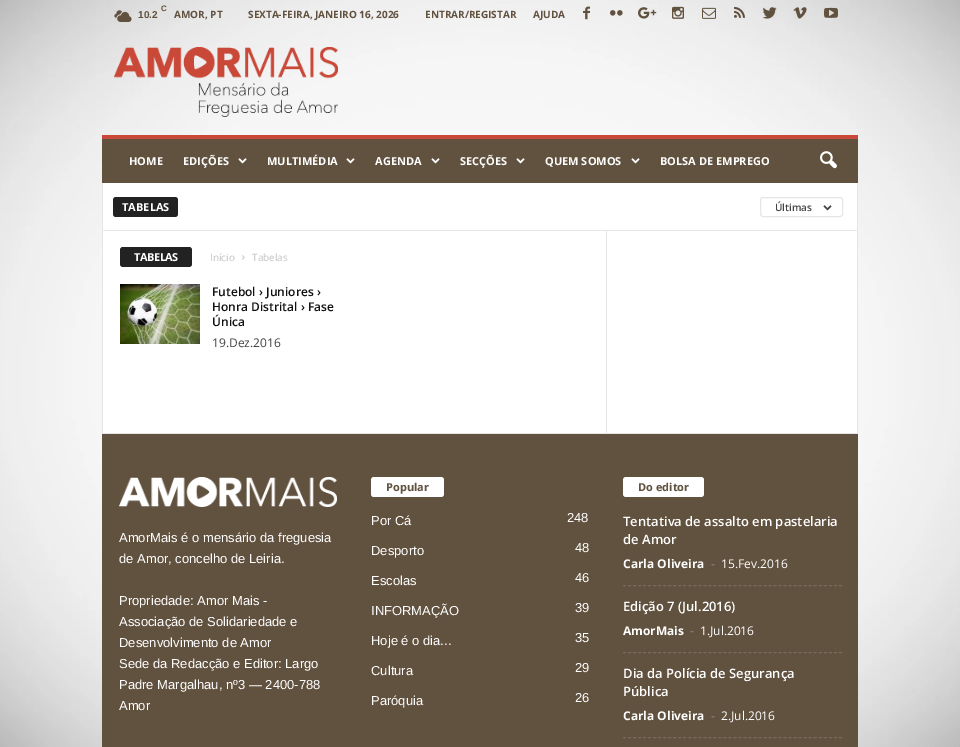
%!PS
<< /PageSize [960 747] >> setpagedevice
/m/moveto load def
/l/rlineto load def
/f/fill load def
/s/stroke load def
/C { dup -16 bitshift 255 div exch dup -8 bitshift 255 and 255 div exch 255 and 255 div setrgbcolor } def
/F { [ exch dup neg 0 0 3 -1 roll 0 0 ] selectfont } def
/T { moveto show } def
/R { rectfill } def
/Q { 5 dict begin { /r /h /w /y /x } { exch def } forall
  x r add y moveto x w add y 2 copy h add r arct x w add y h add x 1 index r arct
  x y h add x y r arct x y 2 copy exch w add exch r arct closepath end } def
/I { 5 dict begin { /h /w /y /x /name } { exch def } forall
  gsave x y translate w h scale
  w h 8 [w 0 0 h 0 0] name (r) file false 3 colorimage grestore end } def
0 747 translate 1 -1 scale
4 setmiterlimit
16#FFFFFF C
0 0 960 747 R
(1.rgb) 0 0 960 747 I
(2.rgb) 114 10 18 12 I
/LiberationSans-Bold 8 F
16#61513F C
(C) 161 11 T
/LiberationSans-Bold 10 F
(10.2) 138 18 T
/OpenSans-Bold 10 F
(AMOR, PT) 174 18 T
(SEXTA-FEIRA, JANEIRO 16, 2026) 248 18 T
(ENTRAR/REGISTAR) 425 18 T
(AJUDA) 533 18 T
(3.rgb) 583 6 7 14 I
(4.rgb) 610 10 13 6 I
(5.rgb) 638 7 19 12 I
(6.rgb) 672 6 12 13 I
(7.rgb) 702 7 14 12 I
(8.rgb) 734 6 11 12 I
(9.rgb) 762 7 15 12 I
(10.rgb) 793 7 14 12 I
(11.rgb) 824 7 14 11 I
(12.rgb) 114 47 224 70 I
102 139 756 44 R
16#C94838 C
102 135 756 4 R
/OpenSans-Bold 11 F
16#FFFFFF C
(HOME) 129 165 T
(EDIÇÕES) 183 165 T
(13.rgb) 238 158 9 6 I
(MULTIMÉDIA) 267 165 T
(13.rgb) 346 158 9 6 I
(AGENDA) 375 165 T
(13.rgb) 431 158 9 6 I
(SECÇÕES) 460 165 T
(13.rgb) 516 158 9 6 I
(QUEM SOMOS) 545 165 T
(13.rgb) 631 158 9 6 I
(BOLSA DE EMPREGO) 660 165 T
(14.rgb) 820 151 17 18 I
103 183 754 47 R
16#E6E6E6 C
857 183 1 250 R
103 230 755 1 R
16#222222 C
113 197 65 20 3 Q f
16#FFFFFF C
(TABELAS) 122 211 T
16#E6E6E6 C
760.5 197.5 82 19 2.5 Q s
/OpenSans-SemiBold 10 F
16#444444 C
(Últimas) 775 211 T
(15.rgb) 823 205 9 6 I
16#FFFFFF C
103 231 754 202 R
16#E6E6E6 C
102 433 756 1 R
102 183 1 250 R
16#222222 C
120 247 72 20 3 Q f
/OpenSans-Bold 11 F
16#FFFFFF C
134 261 m -.5 0 (TABELAS) ashow
/OpenSans-Regular 10 F
16#C3C3C3 C
(Início) 210 261 T
(16.rgb) 242 255 3 5 I
(Tabelas) 252 261 T
(17.rgb) 120 284 80 60 I
/OpenSans-SemiBold 12 F
16#111111 C
(Futebol › Juniores ›) 212 296 T
(Honra Distrital › Fase) 212 311 T
(Única) 212 326 T
/OpenSans-Regular 12 F
16#444444 C
(19.Dez.2016) 212 347 T
16#E6E6E6 C
606 231 1 202 R
16#61513F C
102 434 756 313 R
(18.rgb) 119 477 218 30 I
/LiberationSans-Regular 13 F
16#FFFFFF C
(AmorMais é o mensário da freguesia) 119 542 T
(de Amor, concelho de Leiria.) 119 563 T
(Propriedade: Amor Mais -) 119 605 T
(Associação de Solidariedade e) 119 626 T
(Desenvolvimento de Amor) 119 647 T
(Sede da Redacção e Editor: Largo) 119 668 T
(Padre Margalhau, nº3 — 2400-788) 119 689 T
(Amor) 119 710 T
371 477 73 20 3 Q f
/OpenSans-Bold 11 F
16#61513F C
(Popular) 386 491 T
/LiberationSans-Regular 13 F
16#FFFFFF C
(Por Cá) 371 525 T
(248) 567 522 T
(Desporto) 371 555 T
(48) 575 552 T
(Escolas) 371 585 T
(46) 575 582 T
(INFORMAÇÃO) 371 615 T
(39) 575 612 T
(Hoje é o dia...) 371 645 T
(35) 575 642 T
(Cultura) 371 675 T
(29) 575 672 T
(Paróquia) 371 705 T
(26) 575 702 T
623 477 81 20 3 Q f
/OpenSans-Bold 11 F
16#61513F C
(Do editor) 638 491 T
16#796B5C C
[3 2.02] 0 setdash
623 585.5 m 219 0 l s
/OpenSans-SemiBold 13 F
16#FFFFFF C
(Tentativa de assalto em pastelaria) 623 526 T
(de Amor) 623 544 T
/OpenSans-Bold 12 F
(Carla Oliveira) 623 568 T
/OpenSans-Regular 12 F
16#888888 C
(-) 711 568 T
16#FFFFFF C
(15.Fev.2016) 721 568 T
16#796B5C C
623 652.5 m 219 0 l s
/OpenSans-SemiBold 13 F
16#FFFFFF C
(Edição 7 \(Jul.2016\)) 623 611 T
/OpenSans-Bold 12 F
(AmorMais) 623 635 T
/OpenSans-Regular 12 F
16#888888 C
(-) 690 635 T
16#FFFFFF C
(1.Jul.2016) 700 635 T
16#796B5C C
623 737.5 m 219 0 l s
/OpenSans-SemiBold 13 F
16#FFFFFF C
(Dia da Polícia de Segurança) 623 678 T
(Pública) 623 696 T
/OpenSans-Bold 12 F
(Carla Oliveira) 623 720 T
/OpenSans-Regular 12 F
16#888888 C
(-) 711 720 T
16#FFFFFF C
(2.Jul.2016) 721 720 T
showpage
